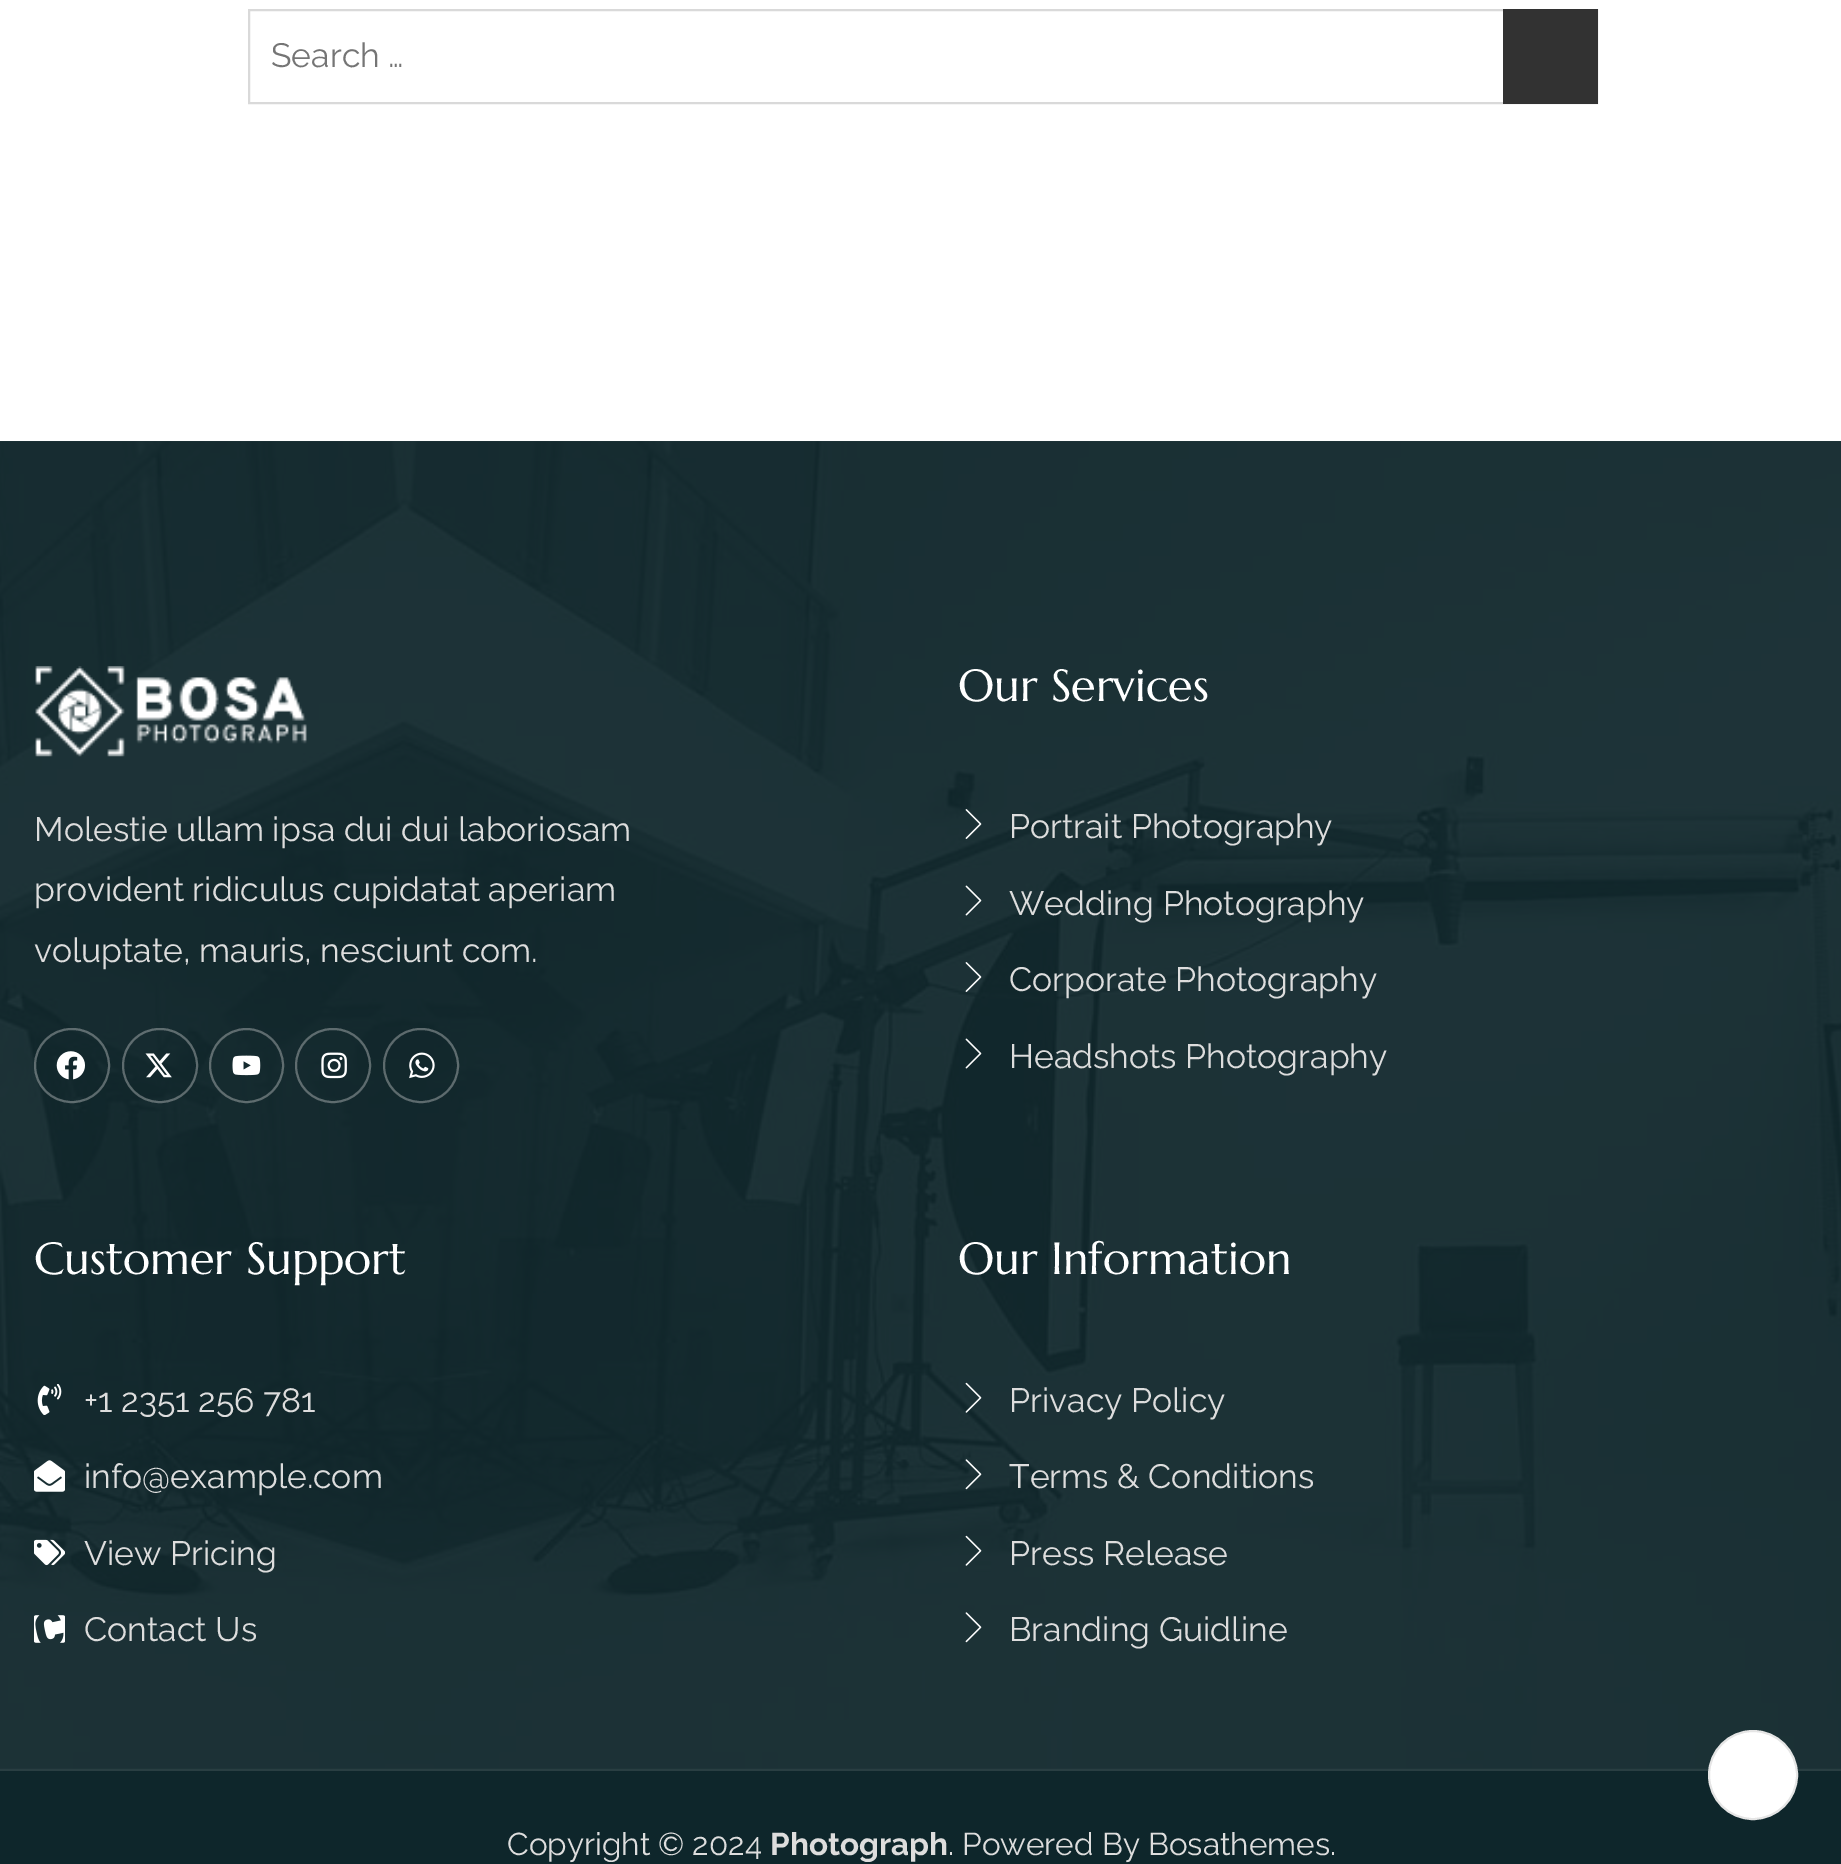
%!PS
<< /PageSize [1841 1864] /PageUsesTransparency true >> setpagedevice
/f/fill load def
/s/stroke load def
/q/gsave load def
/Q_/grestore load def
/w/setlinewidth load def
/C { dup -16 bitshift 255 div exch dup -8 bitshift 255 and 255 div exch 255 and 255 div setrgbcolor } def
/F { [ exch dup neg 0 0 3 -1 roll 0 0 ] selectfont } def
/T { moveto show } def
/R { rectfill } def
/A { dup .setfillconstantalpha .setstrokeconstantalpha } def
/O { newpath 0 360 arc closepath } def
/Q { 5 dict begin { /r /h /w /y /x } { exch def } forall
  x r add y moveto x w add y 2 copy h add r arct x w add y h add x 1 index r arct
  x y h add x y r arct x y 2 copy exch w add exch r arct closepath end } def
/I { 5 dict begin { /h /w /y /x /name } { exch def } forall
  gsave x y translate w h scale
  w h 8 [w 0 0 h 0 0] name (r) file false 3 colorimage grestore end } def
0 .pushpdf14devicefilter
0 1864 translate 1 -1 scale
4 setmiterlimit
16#FFFFFF C
0 0 1841 1864 R
16#D9D9D9 C
2 w
249 10 1348 93 rectstroke
/Raleway-Thin 33.75 F
16#757575 C
(Search …) 271 67 T
16#323232 C
1503 9 95 95 R
(1.rgb) 0 441 1841 1328 I
(2.rgb) 35 666 272 91 I
16#DDDDDD C
(Molestie ullam ipsa dui dui laboriosam) 34 841 T
(provident ridiculus cupidatat aperiam) 34 901 T
(voluptate, mauris, nesciunt com.) 34 962 T
0.37 A
35 1029 74 73 36.5 Q s
1 A
(3.rgb) 56 1051 29 29 I
0.37 A
123 1029 74 73 36.5 Q s
1 A
(4.rgb) 145 1053 27 25 I
0.37 A
246.5 1065.5 36.5 O s
1 A
(5.rgb) 232 1055 29 21 I
0.37 A
296 1029 74 73 36.5 Q s
1 A
(6.rgb) 321 1052 26 27 I
0.37 A
384 1029 74 73 36.5 Q s
1 A
(7.rgb) 409 1052 26 27 I
/Marcellus-Regular 45 F
16#FFFFFF C
(Our Services) 958 701 T
(8.rgb) 965 809 17 30 I
/Raleway-Thin 33.75 F
16#DDDDDD C
(Portrait Photography) 1009 838 T
(9.rgb) 965 885 17 31 I
(Wedding Photography) 1009 915 T
(10.rgb) 965 962 17 30 I
(Corporate Photography) 1009 991 T
(11.rgb) 965 1038 17 31 I
(Headshots Photography) 1009 1068 T
/Marcellus-Regular 45 F
16#FFFFFF C
(Customer Support) 34 1274 T
(12.rgb) 37 1384 25 31 I
/Raleway-Thin 33.75 F
16#DDDDDD C
(+1 2351 256 781) 84 1412 T
(13.rgb) 34 1460 31 32 I
(info@example.com) 84 1488 T
(14.rgb) 34 1539 31 27 I
(View Pricing) 84 1565 T
(15.rgb) 34 1615 31 28 I
(Contact Us) 84 1641 T
/Marcellus-Regular 45 F
16#FFFFFF C
(Our Information) 958 1274 T
(16.rgb) 965 1382 17 31 I
/Raleway-Thin 33.75 F
16#DDDDDD C
(Privacy Policy) 1009 1412 T
(17.rgb) 965 1459 17 31 I
(Terms & Conditions) 1009 1488 T
(18.rgb) 965 1535 17 31 I
(Press Release) 1009 1565 T
(19.rgb) 965 1612 17 31 I
(Branding Guidline) 1009 1641 T
16#0E262B C
0 1771 1841 93 R
16#293E42 C
0 1769 1841 2 R
/Raleway-Thin 31.5 F
16#DDDDDD C
(Copyright © 2024) 507 1855 T
/Raleway-Bold 31.5 F
(Photograph) 770 1855 T
/Raleway-Thin 31.5 F
(. Powered By Bosathemes.) 948 1855 T
16#FFFFFF C
1753 1775 44 O q f Q_
16#E5E5E5 C
s
.poppdf14devicefilter showpage
